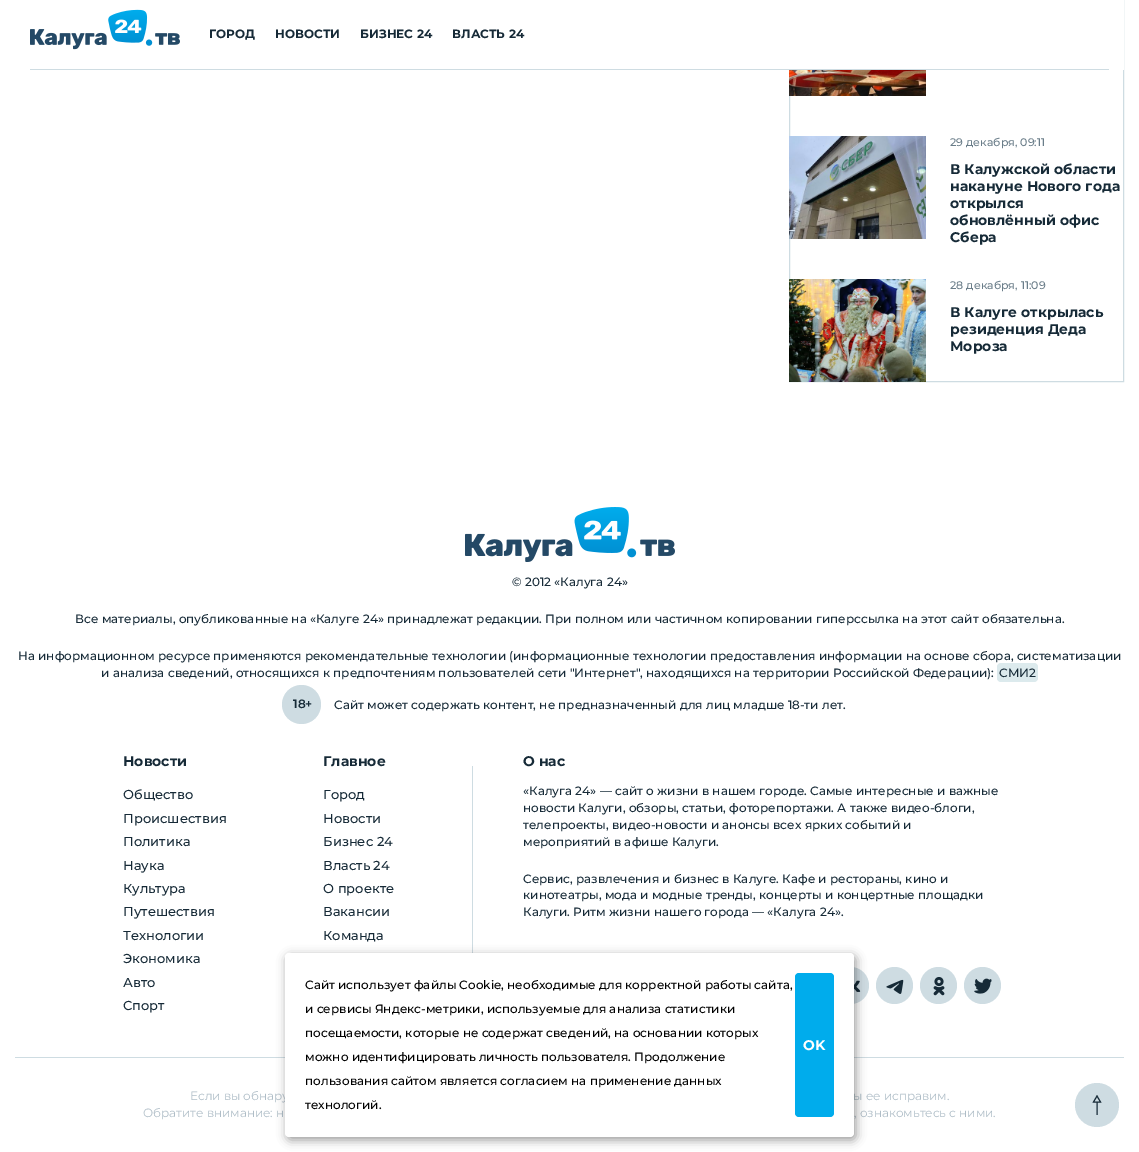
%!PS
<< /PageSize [1139 1152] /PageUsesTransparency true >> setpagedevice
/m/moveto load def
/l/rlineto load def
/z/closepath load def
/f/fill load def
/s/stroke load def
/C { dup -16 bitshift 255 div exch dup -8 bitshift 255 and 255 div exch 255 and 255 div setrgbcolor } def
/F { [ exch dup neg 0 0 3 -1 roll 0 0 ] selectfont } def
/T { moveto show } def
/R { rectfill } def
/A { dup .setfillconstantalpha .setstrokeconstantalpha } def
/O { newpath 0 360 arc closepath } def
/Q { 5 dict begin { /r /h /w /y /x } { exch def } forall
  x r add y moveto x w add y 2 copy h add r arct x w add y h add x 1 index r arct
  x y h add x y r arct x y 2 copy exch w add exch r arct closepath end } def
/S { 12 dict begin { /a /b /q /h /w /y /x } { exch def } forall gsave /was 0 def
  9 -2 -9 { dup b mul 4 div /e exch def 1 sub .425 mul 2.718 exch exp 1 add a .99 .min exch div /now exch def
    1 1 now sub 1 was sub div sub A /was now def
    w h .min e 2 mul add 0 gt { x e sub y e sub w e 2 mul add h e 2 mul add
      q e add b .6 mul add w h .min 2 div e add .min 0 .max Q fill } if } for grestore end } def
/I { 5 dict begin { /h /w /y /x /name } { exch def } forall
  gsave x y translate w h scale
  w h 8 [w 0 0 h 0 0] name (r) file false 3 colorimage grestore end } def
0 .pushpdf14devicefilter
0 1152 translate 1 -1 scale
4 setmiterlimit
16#FFFFFF C
0 0 1139 1152 R
16#CEDCE2 C
789.5 -.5 334 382 rectstroke
16#FFFFFF C
789 0 335 70 R
16#CEDCE2 C
30 69 1079 1 R
(1.rgb) 30 9 150 41 I
/Montserrat-Bold 12 F
16#162A37 C
(ГОРОД) 209 38 T
(НОВОСТИ) 275 38 T
(БИЗНЕС 24) 360 38 T
(ВЛАСТЬ 24) 452 38 T
(2.rgb) 789 70 137 26 I
(3.rgb) 789 136 137 103 I
/Montserrat-Medium 11 F
16#6A7D89 C
(29 декабря, 09:11) 950 146 T
/Montserrat-Bold 14 F
16#162A37 C
(В Калужской области) 950 174 T
(накануне Нового года) 950 191 T
(открылся) 950 208 T
(обновлённый офис) 950 225 T
(Сбера) 950 242 T
(4.rgb) 789 279 137 103 I
/Montserrat-Medium 11 F
16#6A7D89 C
(28 декабря, 11:09) 950 289 T
/Montserrat-Bold 14 F
16#162A37 C
(В Калуге открылась) 950 317 T
(резиденция Деда) 950 334 T
(Мороза) 950 351 T
16#CEDCE2 C
15 1057 1109 1 R
(5.rgb) 465 507 210 55 I
/Montserrat-Medium 12 F
16#162A37 C
(© 2012 «Калуга 24») 512 586 T
(Все материалы, опубликованные на «Калуге 24» принадлежат редакции. При полном или частичном копировании гиперссылка на этот сайт обязательна.) 75 623 T
(На информационном ресурсе применяются рекомендательные технологии \(информационные технологии предоставления информации на основе сбора, систематизации) 18 660 T
(и анализа сведений, относящихся к предпочтениям пользователей сети "Интернет", находящихся на территории Российской Федерации\):) 101 677 T
16#DCEAED C
997 663 41 19 4 Q f
16#162A37 C
(СМИ2) 999 677 T
16#CEDCE2 C
301.5 704.5 19.5 O f
/Montserrat-SemiBold 12 F
16#162A37 C
(18+) 293 708 T
/Montserrat-Medium 12 F
(Сайт может содержать контент, не предназначенный для лиц младше 18-ти лет.) 334 709 T
/Montserrat-Bold 14 F
(Новости) 123 766 T
/Montserrat-Medium 13 F
(Общество) 123 799 T
(Происшествия) 123 823 T
(Политика) 123 846 T
(Наука) 123 870 T
(Культура) 123 893 T
(Путешествия) 123 916 T
(Технологии) 123 940 T
(Экономика) 123 963 T
(Авто) 123 987 T
(Спорт) 123 1010 T
/Montserrat-Bold 14 F
(Главное) 323 766 T
/Montserrat-Medium 13 F
(Город) 323 799 T
(Новости) 323 823 T
(Бизнес 24) 323 846 T
(Власть 24) 323 870 T
(О проекте) 323 893 T
(Вакансии) 323 916 T
(Команда) 323 940 T
16#CEDCE2 C
472 766 1 187 R
/Montserrat-Bold 14 F
16#162A37 C
(О нас) 523 766 T
/Montserrat-Medium 12 F
(«Калуга 24» — сайт о жизни в нашем городе. Самые интересные и важные) 523 795 T
(новости Калуги, обзоры, статьи, фоторепортажи. А также видео-блоги,) 523 812 T
(телепроекты, видео-новости и анонсы всех ярких событий и) 523 829 T
(мероприятий в афише Калуги.) 523 846 T
(Сервис, развлечения и бизнес в Калуге. Кафе и рестораны, кино и) 523 883 T
(кинотеатры, мода и модные тренды, концерты и концертные площадки) 523 899 T
(Калуги. Ритм жизни нашего города — «Калуга 24».) 523 916 T
16#CEDCE2 C
850.5 985.5 18.5 O f
(6.rgb) 854 980 7 12 I
894.5 985.5 18.5 O f
(7.rgb) 886 979 18 15 I
938.5 985.5 18.5 O f
(8.rgb) 933 977 12 19 I
982.5 985.5 18.5 O f
(9.rgb) 974 978 18 16 I
/Montserrat-Regular 12 F
16#AFBDC7 C
(Если вы обнару) 190 1100 T
(ы ее исправим.) 853 1100 T
(Обратите внимание: н) 143 1117 T
(, ознакомьтесь с ними.) 854 1117 T
16#000000 C
287 956 569 184 4 5 .4 S
16#FFFFFF C
285 953 569 184 4 Q f
/Montserrat-Medium 12 F
16#000000 C
(Сайт использует файлы Cookie, необходимые для корректной работы сайта,) 305 989 T
(и сервисы Яндекс-метрики, используемые для анализа статистики) 305 1013 T
(посещаемости, которые не содержат сведений, на основании которых) 305 1037 T
(можно идентифицировать личность пользователя. Продолжение) 305 1061 T
(пользования сайтом является согласием на применение данных) 305 1085 T
(технологий.) 305 1109 T
16#00ACEC C
795 973 39 144 4 Q f
/Montserrat-Bold 14 F
16#FFFFFF C
(OK) 803 1050 T
16#CEDCE2 C
1097 1105 22 O f
16#162A37 C
1093.5 1102 m 3.5 -6 l 3.5 6 l z 1097 1102 m 0 13 l s
.poppdf14devicefilter showpage
